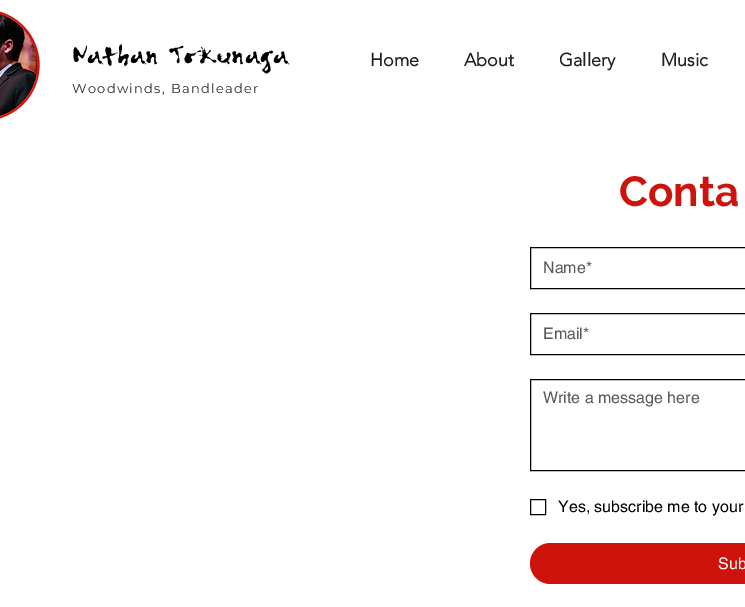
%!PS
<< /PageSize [745 607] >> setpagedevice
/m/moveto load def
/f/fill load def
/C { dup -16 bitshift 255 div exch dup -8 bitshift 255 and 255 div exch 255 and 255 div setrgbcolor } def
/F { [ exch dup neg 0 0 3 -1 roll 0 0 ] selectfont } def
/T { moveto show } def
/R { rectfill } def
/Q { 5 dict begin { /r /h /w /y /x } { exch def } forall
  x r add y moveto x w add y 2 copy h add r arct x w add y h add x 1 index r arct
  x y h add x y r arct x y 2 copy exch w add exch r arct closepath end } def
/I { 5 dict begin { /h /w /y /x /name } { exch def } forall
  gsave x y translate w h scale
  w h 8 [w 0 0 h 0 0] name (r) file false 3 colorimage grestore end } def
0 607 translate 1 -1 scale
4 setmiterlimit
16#FFFFFF C
0 0 745 607 R
(1.rgb) 0 11 40 108 I
/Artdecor-Regular 26 F
16#000000 C
(Nathan Tokunaga) 72 63 T
/Montserrat-Regular 13 F
16#2A2A2A C
72 93 m 1.3 0 (Woodwinds, Bandleader) ashow
/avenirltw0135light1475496-Bold 18 F
16#212121 C
(Home) 370 66 T
(About) 464 66 T
(Gallery) 559 66 T
(Music) 661 66 T
/Raleway-Bold 42 F
16#CE130D C
(Conta) 619 206 T
16#000000 C
530.5 247.5 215 41 rectstroke
/helvetica-Regular 16 F
16#595959 C
(Name*) 543 273 T
16#000000 C
530.5 313.5 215 41 rectstroke
16#595959 C
(Email*) 543 339 T
16#000000 C
530.5 379.5 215 91 rectstroke
16#595959 C
(Write a message here) 543 403 T
16#000000 C
530.5 499.5 15 15 rectstroke
(Yes, subscribe me to your) 558 512 T
16#CE130D C
530 543 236 41 20.5 Q f
16#FFFFFF C
(Sub) 718 569 T
showpage
